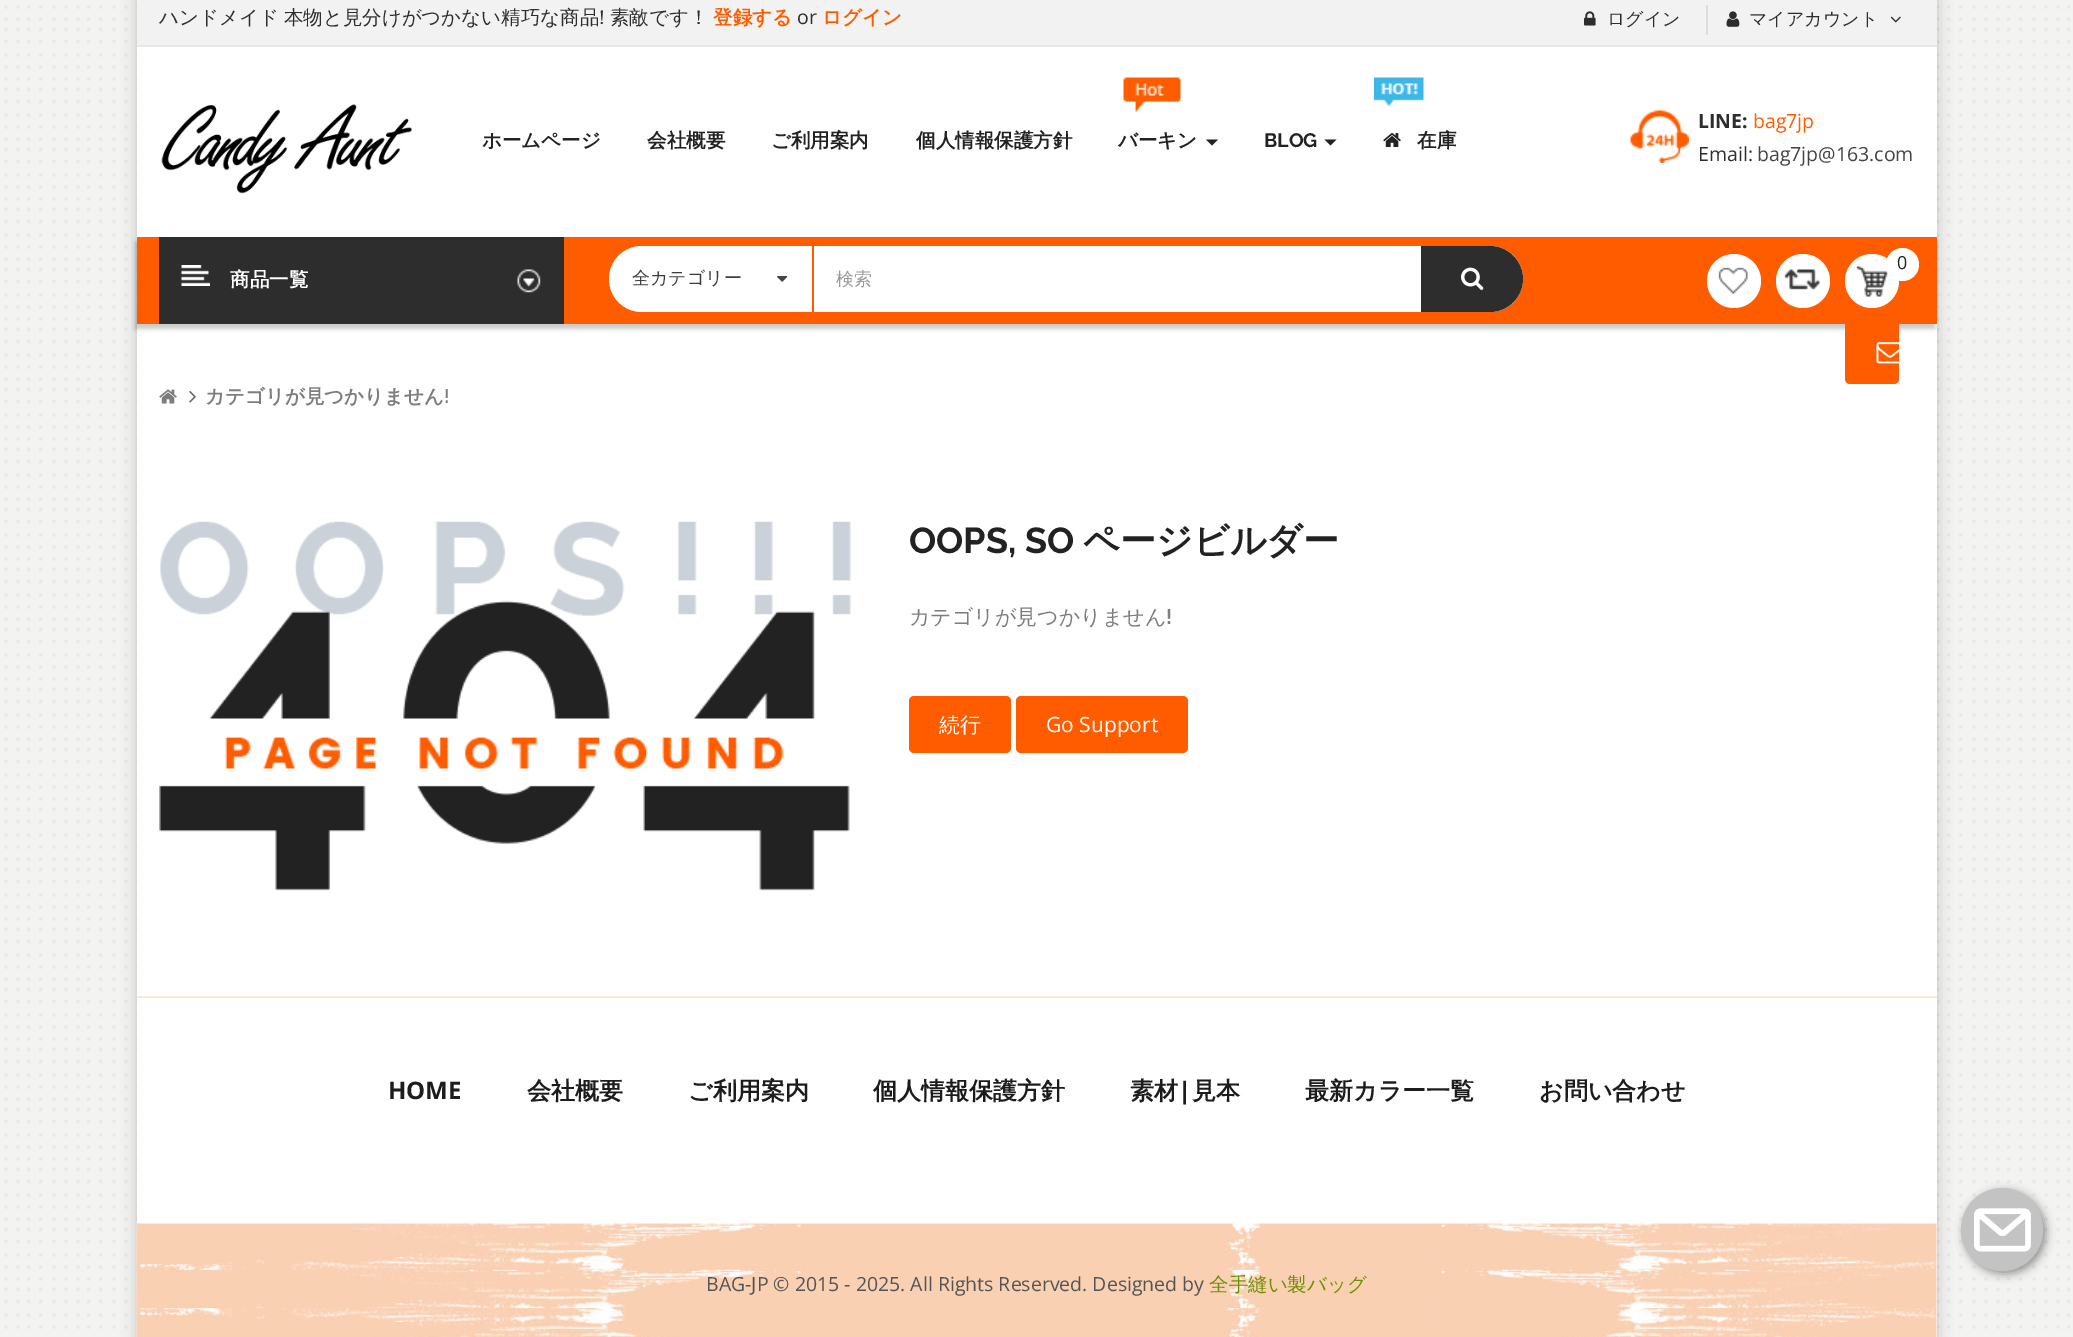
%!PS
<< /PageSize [2073 1337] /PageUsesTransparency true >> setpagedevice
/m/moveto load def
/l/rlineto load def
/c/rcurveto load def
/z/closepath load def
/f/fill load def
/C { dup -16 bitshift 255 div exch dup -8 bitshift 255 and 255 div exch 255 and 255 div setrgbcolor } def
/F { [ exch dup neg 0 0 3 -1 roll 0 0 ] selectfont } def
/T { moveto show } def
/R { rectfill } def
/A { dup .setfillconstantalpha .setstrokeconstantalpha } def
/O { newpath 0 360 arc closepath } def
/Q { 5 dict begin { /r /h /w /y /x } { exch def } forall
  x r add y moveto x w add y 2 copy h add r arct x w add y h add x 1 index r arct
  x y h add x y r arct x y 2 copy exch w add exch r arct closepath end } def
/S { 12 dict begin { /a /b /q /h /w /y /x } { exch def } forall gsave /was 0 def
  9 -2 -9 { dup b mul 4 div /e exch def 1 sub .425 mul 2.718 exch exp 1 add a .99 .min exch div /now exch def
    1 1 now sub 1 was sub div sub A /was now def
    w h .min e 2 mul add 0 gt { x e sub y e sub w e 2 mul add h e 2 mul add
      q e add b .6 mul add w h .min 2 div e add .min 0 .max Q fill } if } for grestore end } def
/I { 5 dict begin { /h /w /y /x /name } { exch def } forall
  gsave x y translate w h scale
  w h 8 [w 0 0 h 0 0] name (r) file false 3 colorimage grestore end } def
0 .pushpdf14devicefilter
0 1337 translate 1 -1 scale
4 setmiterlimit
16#FFFFFF C
0 0 2073 1337 R
(1.rgb) 0 0 2073 1337 I
16#000000 C
137 -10 1800 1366 0 7.5 .2 S
16#FFFFFF C
137 47 1800 1290 R
16#F2F2F2 C
137 0 1800 45 R
16#E8E8E8 C
137 45 1800 2 R
/WenQuanYiZenHei-Medium 19.5 F
16#2D2D2D C
159 24 m -1 0 32 (ハンドメイド 本物と見分けがつかない精巧な商品! 素敵です！) widthshow
/WenQuanYiZenHei-Bold 19.5 F
16#FF5C00 C
(登録する) 713 24 T
/OpenSans-Regular 19.5 F
16#2D2D2D C
(or) 797 24 T
/WenQuanYiZenHei-Bold 19.5 F
16#FF5C00 C
(ログイン) 822 24 T
(2.rgb) 1584 11 12 15 I
/WenQuanYiZenHei-Medium 18 F
16#2D2D2D C
(ログイン) 1607 25 T
16#DDDDDD C
1706 5 2 30 R
(3.rgb) 1726 11 14 16 I
16#2D2D2D C
(マイアカウント) 1749 25 T
(4.rgb) 1890 16 11 7 I
(5.rgb) 161 104 251 90 I
/WenQuanYiZenHei-Bold 19.5 F
16#222222 C
(ホームページ) 482 147 T
(会社概要) 647 147 T
(ご利用案内) 771 147 T
(個人情報保護方針) 916 147 T
(6.rgb) 1123 77 58 35 I
(バーキン) 1118 147 T
1206 139.5 m 12 0 l -6 6 l z f
/Raleway-Bold 19.5 F
(BLOG) 1264 147 T
1324.5 139.5 m 12 0 l -6 6 l z f
(7.rgb) 1374 77 50 29 I
(8.rgb) 1383 133 18 14 I
/WenQuanYiZenHei-Bold 19.5 F
(在庫) 1417 147 T
(9.rgb) 1630 110 59 53 I
/OpenSans-Bold 19.5 F
16#2D2D2D C
(LINE:) 1698 128 T
/OpenSans-Regular 19.5 F
16#FF5C00 C
(bag7jp) 1753 128 T
16#2D2D2D C
(Email:) 1698 161 T
16#444444 C
(bag7jp@163.com) 1757 161 T
16#000000 C
135 242 1800 87 0 2 .2 S
16#FF5C00 C
137 237 1800 87 R
16#2D2D2D C
159 237 405 87 R
(10.rgb) 181 265 29 21 I
/WenQuanYiZenHei-Bold 19.5 F
16#FFFFFF C
(商品一覧) 230 286 T
(11.rgb) 517 269 24 24 I
1734 281 27 O f
(12.rgb) 1718 267 30 27 I
1803 281 27 O f
(13.rgb) 1784 269 36 21 I
1872 281 27 O f
(14.rgb) 1856 266 32 31 I
1902.5 264.5 16.5 O f
/OpenSans-Regular 18 F
16#222222 C
(0) 1897 269 T
16#FF5C00 C
1845 318 54 66 5 Q f
(15.rgb) 1876 342 23 22 I
16#FFFFFF C
609 246 914 66 33 Q f
/WenQuanYiZenHei-Medium 18 F
16#3D3D3D C
(全カテゴリー) 632 284 T
(16.rgb) 777 276 11 6 I
16#FF5C00 C
812 246 2 66 R
16#999999 C
(検索) 836 285 T
16#2D2D2D C
1421 246 m 69 0 l 18 0 33 15 33 33 c 0 18 -15 33 -33 33 c -69 0 l z f
(17.rgb) 1461 267 23 23 I
(18.rgb) 159 389 18 15 I
(19.rgb) 189 391 7 12 I
/WenQuanYiZenHei-Bold 19.5 F
16#7D7D7D C
(カテゴリが見つかりません) 205 403 T
/Raleway-SemiBold 19.5 F
(!) 444 403 T
(20.rgb) 159 521 692 370 I
/Raleway-Bold 36 F
16#222222 C
(OOPS, SO) 909 553 T
/WenQuanYiZenHei-Bold 36 F
(ページビルダー) 1083 553 T
/WenQuanYiZenHei-Medium 21 F
16#7D7D7D C
(カテゴリが見つかりません) 909 624 T
/Raleway-SemiBold 21 F
(!) 1166 624 T
16#FF5C00 C
909 696 102 57 5 Q f
/WenQuanYiZenHei-Medium 21 F
16#FFFFFF C
(続行) 939 732 T
16#FF5C00 C
1016 696 172 57 5 Q f
/OpenSans-Regular 21 F
16#FFFFFF C
(Go Support) 1046 732 T
16#F6EADC C
137 996 1800 2 R
/OpenSans-Bold 24 F
16#1C1C1C C
(HOME) 388 1099 T
/WenQuanYiZenHei-Bold 24 F
(会社概要) 527 1099 T
(ご利用案内) 688 1099 T
(個人情報保護方針) 873 1099 T
(素材) 1130 1099 T
/OpenSans-Bold 24 F
(|) 1178 1099 T
/WenQuanYiZenHei-Bold 24 F
(見本) 1192 1099 T
(最新カラー一覧) 1305 1099 T
(お問い合わせ) 1539 1099 T
(21.rgb) 136 1223 1801 114 I
/OpenSans-Regular 19.5 F
16#545454 C
(BAG-JP © 2015 - 2025. All Rights Reserved. Designed by) 706 1291 T
/WenQuanYiZenHei-Medium 19.5 F
16#6E8F04 C
(全手縫い製バッグ) 1209 1291 T
16#000000 C
1964 1191 82 83 41 4.5 .4 S
16#C3C3C3 C
1961 1188 82 83 41 Q f
(22.rgb) 1974 1208 57 44 I
.poppdf14devicefilter showpage
